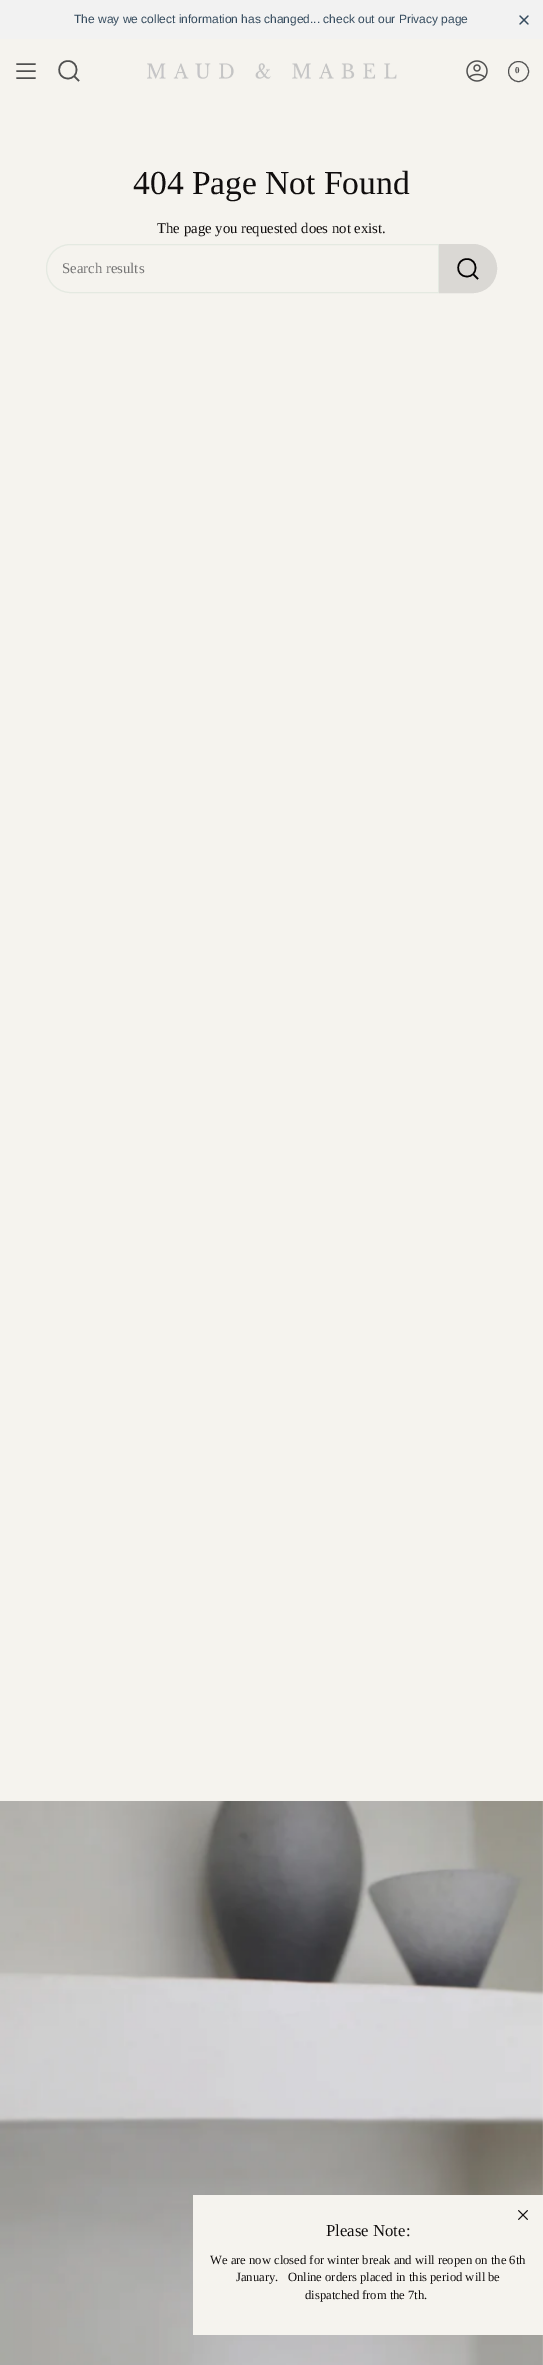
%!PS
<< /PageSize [543 2365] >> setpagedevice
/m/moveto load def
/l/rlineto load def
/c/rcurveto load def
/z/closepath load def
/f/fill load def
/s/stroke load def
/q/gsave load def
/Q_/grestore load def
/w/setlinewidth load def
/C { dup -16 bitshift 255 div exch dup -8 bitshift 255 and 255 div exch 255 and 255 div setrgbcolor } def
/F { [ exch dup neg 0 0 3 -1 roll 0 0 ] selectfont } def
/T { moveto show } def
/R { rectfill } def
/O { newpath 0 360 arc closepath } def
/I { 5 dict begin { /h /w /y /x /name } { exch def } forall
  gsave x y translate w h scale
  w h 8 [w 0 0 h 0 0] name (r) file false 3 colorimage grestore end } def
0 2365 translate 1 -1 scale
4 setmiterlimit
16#F5F3EE C
0 0 543 2365 R
16#F2F2F2 C
0 0 543 39 R
/LiberationSans-Regular 12 F
16#354B5E C
(The way we collect information has changed... check out our Privacy page) 74 23 T
(1.rgb) 519 15 10 10 I
16#505050 C
1.5 w
1 setlinecap
1 setlinejoin
17 64 m 18 0 l 17 71 m 18 0 l 17 78 m 18 0 l s
0 setlinecap
0 setlinejoin
68 61 m 11.5 0 11.5 18 -.5 17.5 c -11.5 -.5 -11 -17.5 .5 -17.5 c z 74 76 m 5 5 l s
(2.rgb) 147 63 250 16 I
(3.rgb) 466 60 22 22 I
1 w
518.5 71.5 10 O s
/LiberationSerif-Bold 9 F
(0) 515 73 T
/LiberationSerif-Regular 33.5 F
16#110E0E C
(404 Page Not Found) 133 194 T
/LiberationSerif-Regular 14.75 F
(The page you requested does not exist.) 157 233 T
16#E4E9E1 C
70.5 244.5 m 368 0 l 0 48 l -368 0 l -13.5 0 -24 -10.5 -24 -24 c 0 -13.5 10.5 -24 24 -24 c z s
16#757575 C
(Search results) 62 273 T
16#DAD8D4 C
439.5 244.5 m 33 0 l 13.5 0 24 10.5 24 24 c 0 13.5 -10.5 24 -24 24 c -33 0 l z q f Q_
s
16#030101 C
1.5 w
467 259 m 11.5 0 11.5 18 -.5 17.5 c -11.5 -.5 -11 -17.5 .5 -17.5 c z 473 274 m 5 5 l s
(5.rgb) 0 1801 543 564 I
16#F5F3EE C
193 2195 350 140 R
(4.rgb) 518 2210 10 10 I
/LiberationSerif-Regular 16.75 F
16#110E0E C
(Please Note:) 326 2236 T
/LiberationSerif-Regular 12.6 F
(We are now closed for winter break and will reopen on the 6th) 210 2264 T
(January.   Online orders placed in this period will be) 236 2281 T
(dispatched from the 7th.) 305 2299 T
showpage
